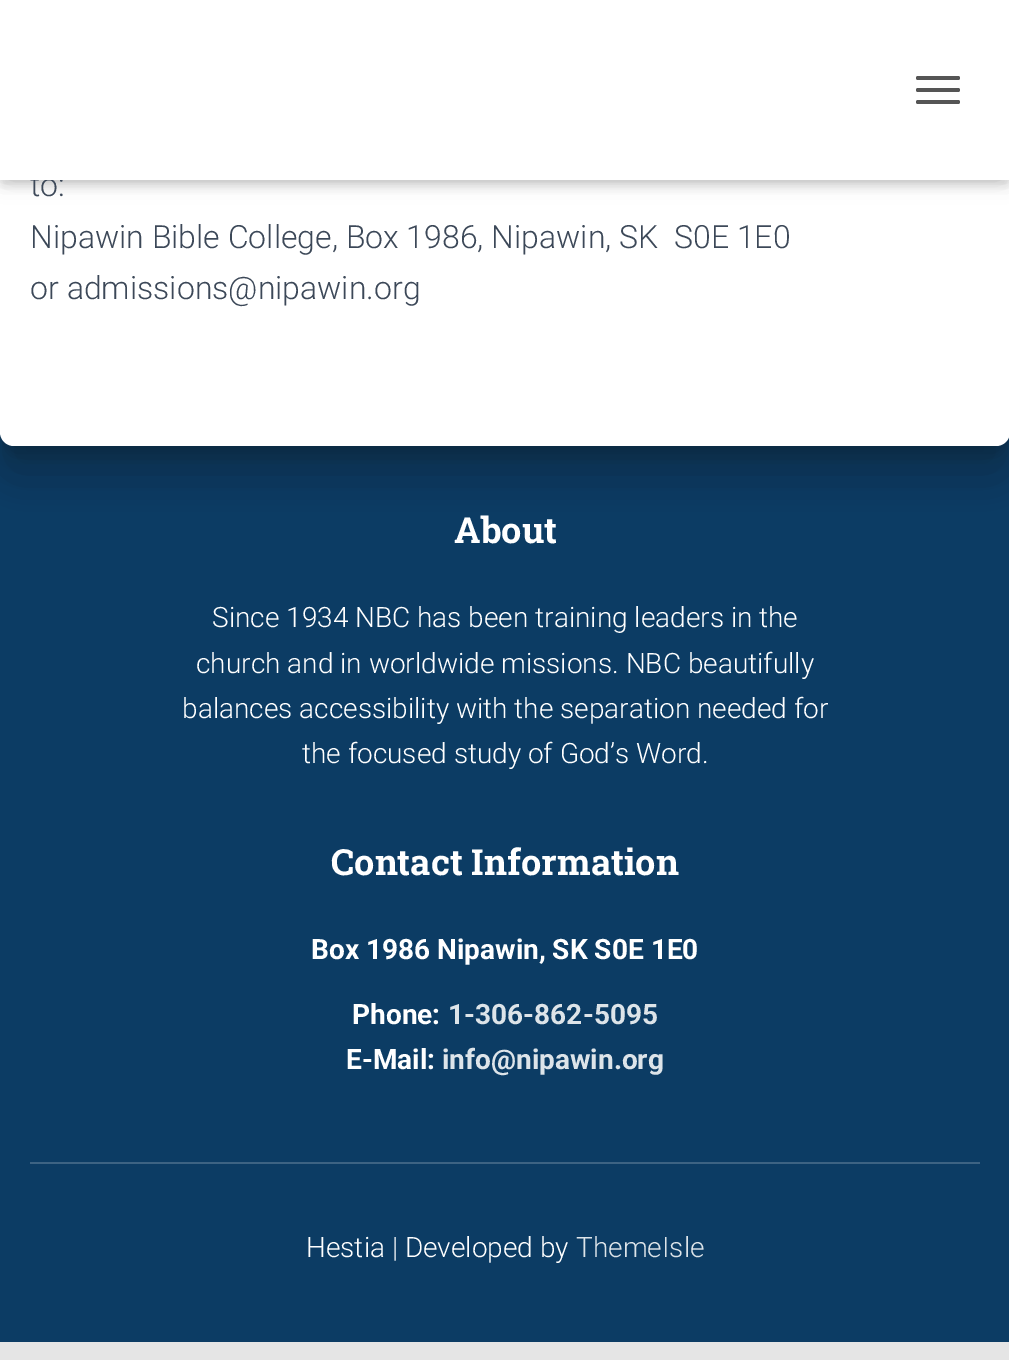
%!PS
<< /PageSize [1009 1360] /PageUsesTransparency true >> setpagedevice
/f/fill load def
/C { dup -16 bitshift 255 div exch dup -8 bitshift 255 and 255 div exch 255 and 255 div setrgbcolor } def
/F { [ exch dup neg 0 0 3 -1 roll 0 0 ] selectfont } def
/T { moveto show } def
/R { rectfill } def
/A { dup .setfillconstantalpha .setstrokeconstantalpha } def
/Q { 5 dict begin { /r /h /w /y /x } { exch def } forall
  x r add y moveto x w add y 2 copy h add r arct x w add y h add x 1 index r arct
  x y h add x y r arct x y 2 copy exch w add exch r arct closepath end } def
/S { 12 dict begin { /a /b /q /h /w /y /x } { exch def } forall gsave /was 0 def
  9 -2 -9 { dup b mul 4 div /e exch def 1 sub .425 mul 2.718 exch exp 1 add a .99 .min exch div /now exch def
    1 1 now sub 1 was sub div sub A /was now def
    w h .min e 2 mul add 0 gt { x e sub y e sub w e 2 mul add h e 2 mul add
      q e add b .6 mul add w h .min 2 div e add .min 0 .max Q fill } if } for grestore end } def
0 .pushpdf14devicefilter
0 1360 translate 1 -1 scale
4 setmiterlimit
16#E5E5E5 C
0 0 1009 1360 R
16#0C3C64 C
0 432 1009 910 R
16#000000 C
10 74 990 378 4 10 .2 S
-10 50 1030 418 24 30 .12 S
-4 76 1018 406 18 24 .14 S
16#FFFFFF C
0 48 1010 398 14 Q f
16#000000 C
4 12 1002 172 0 5 .1 S
0 2 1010 180 0 10 .12 S
12 14 986 156 0 10 .42 S
/Roboto-Light 32 F
16#3C4858 C
(to:) 30 196 T
16#FFFFFF C
0 0 1009 180 R
16#555555 C
916 76 44 4 2 Q f
916 88 44 4 2 Q f
916 100 44 4 2 Q f
16#3C4858 C
(Nipawin Bible College, Box 1986, Nipawin, SK  S0E 1E0) 30 248 T
(or admissions@nipawin.org) 30 299 T
/RobotoSlab-Bold 36 F
16#FFFFFF C
(About) 454 543 T
/Roboto-Light 28 F
(Since 1934 NBC has been training leaders in the) 212 627 T
(church and in worldwide missions. NBC beautifully) 196 673 T
(balances accessibility with the separation needed for) 182 718 T
(the focused study of God’s Word.) 302 763 T
/RobotoSlab-Bold 36 F
(Contact Information) 331 875 T
/Roboto-Bold 28 F
(Box 1986 Nipawin, SK S0E 1E0) 311 959 T
(Phone:) 352 1024 T
16#DDE4E9 C
(1-306-862-5095) 448 1024 T
16#FFFFFF C
(E-Mail:) 346 1069 T
16#DDE4E9 C
(info@nipawin.org) 442 1069 T
16#3D6383 C
30 1162 950 2 R
/Roboto-Light 28 F
16#FFFFFF C
(Hestia | Developed by) 306 1257 T
16#DDE4E9 C
(ThemeIsle) 576 1257 T
.poppdf14devicefilter showpage
